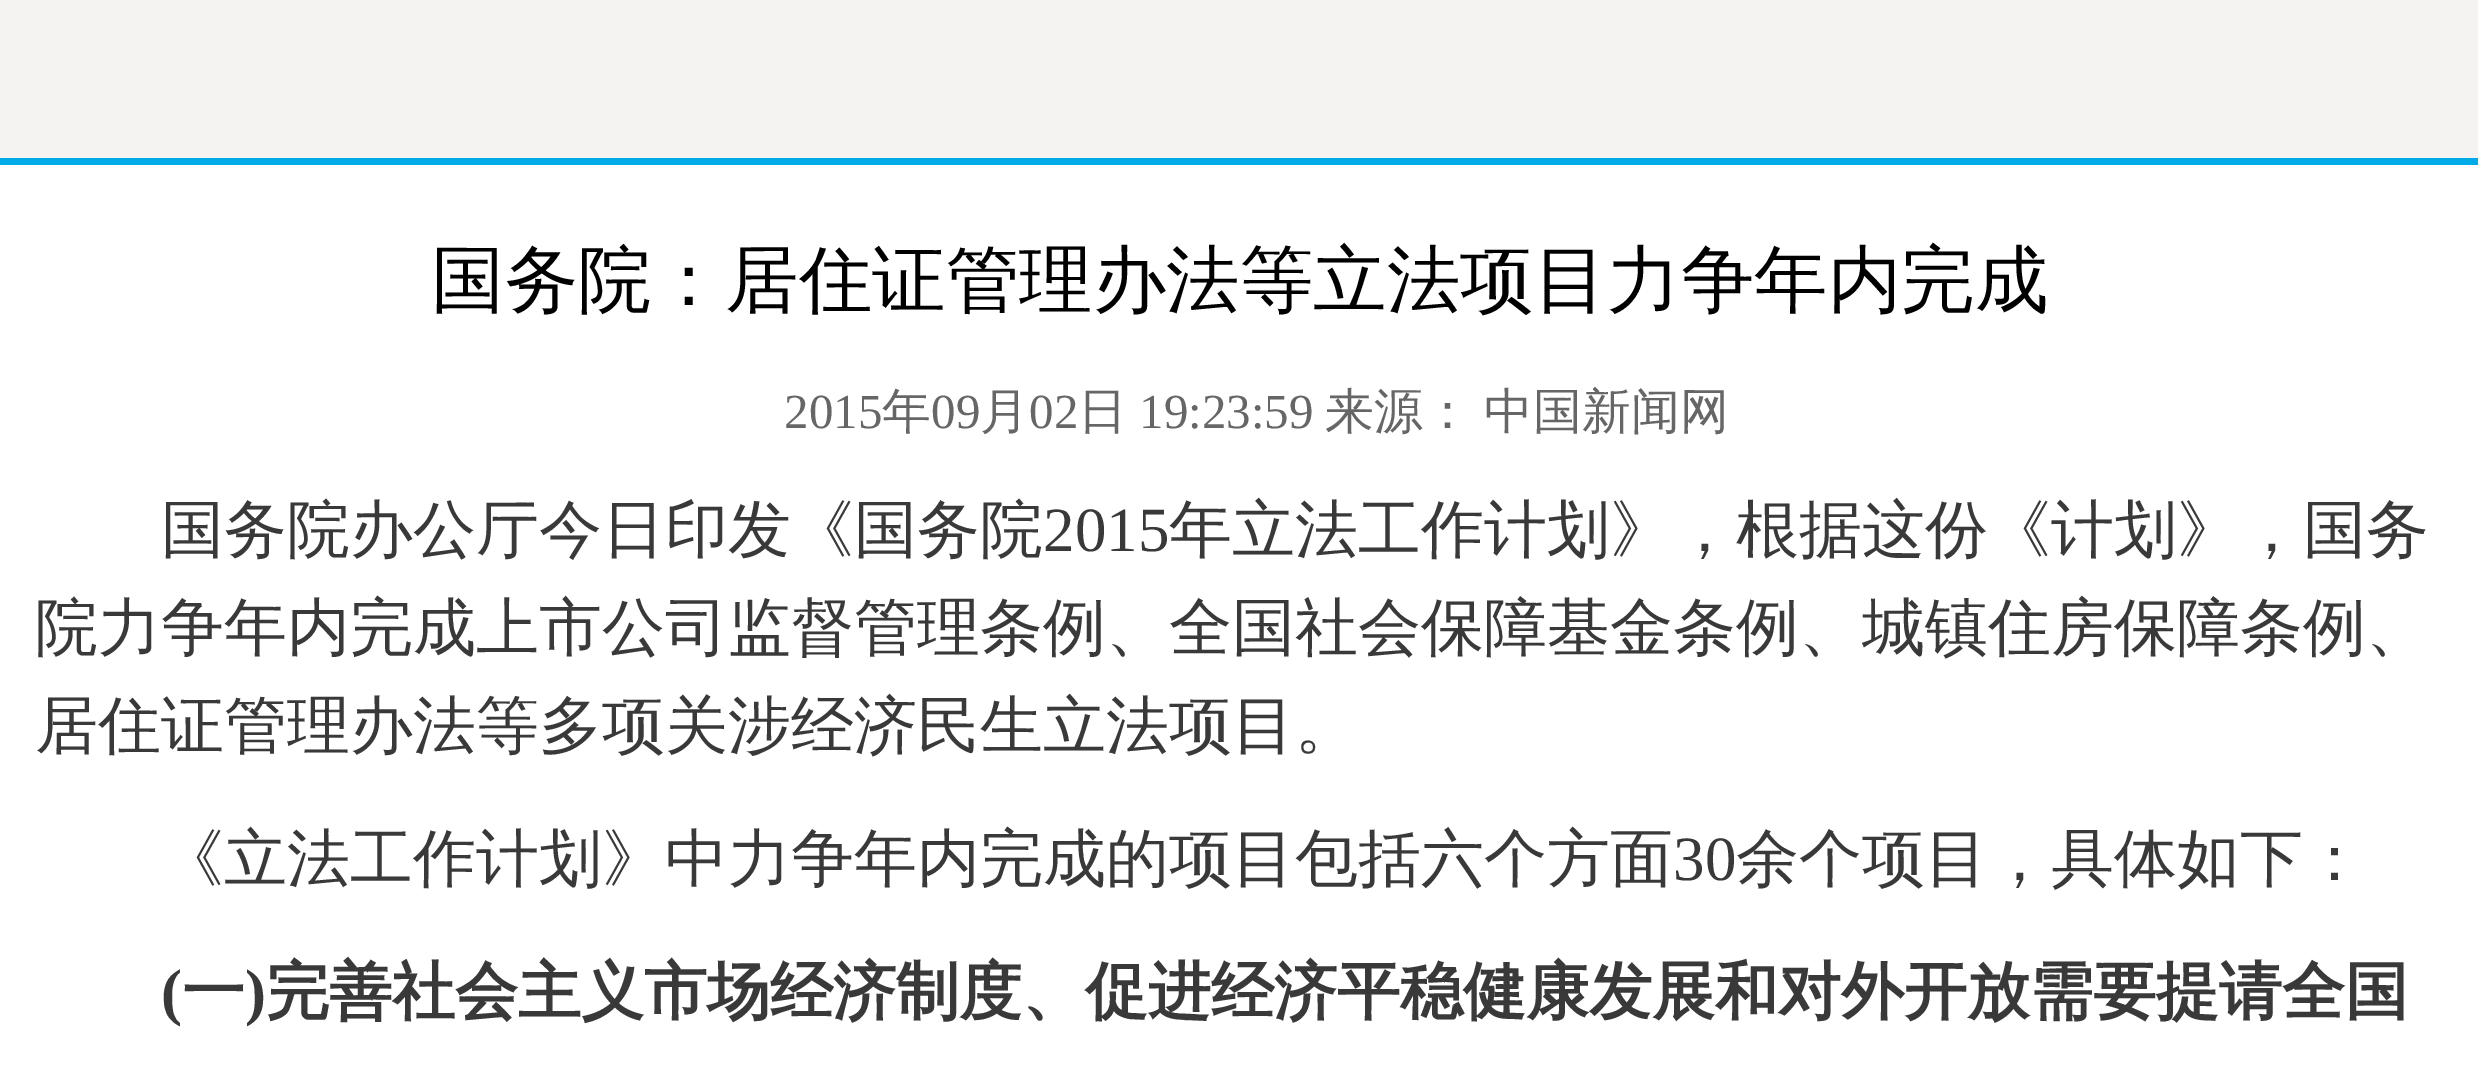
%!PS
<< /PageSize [2478 1080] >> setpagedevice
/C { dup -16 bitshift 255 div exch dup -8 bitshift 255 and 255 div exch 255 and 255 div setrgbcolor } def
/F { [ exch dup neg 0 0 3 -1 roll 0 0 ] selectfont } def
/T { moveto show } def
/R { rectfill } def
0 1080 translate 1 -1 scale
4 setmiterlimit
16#FFFFFF C
0 0 2478 1080 R
16#F5F3F2 C
0 0 2478 158 R
16#00ABE7 C
0 158 2478 7 R
/WenQuanYiZenHei-Medium 73.5 F
16#000000 C
(国务院：居住证管理办法等立法项目力争年内完成) 431 305 T
/LiberationSerif-Regular 49 F
16#666666 C
(2015) 784 428 T
/WenQuanYiZenHei-Medium 49 F
(年) 882 428 T
/LiberationSerif-Regular 49 F
(09) 931 428 T
/WenQuanYiZenHei-Medium 49 F
(月) 980 428 T
/LiberationSerif-Regular 49 F
(02) 1029 428 T
/WenQuanYiZenHei-Medium 49 F
(日) 1078 428 T
/LiberationSerif-Regular 49 F
(19:23:59) 1139 428 T
/WenQuanYiZenHei-Medium 49 F
(来源：) 1325 428 T
(中国新闻网) 1484 428 T
/WenQuanYiZenHei-Medium 63 F
16#393939 C
(国务院办公厅今日印发《国务院) 161 551 T
/LiberationSerif-Regular 63 F
(2015) 1043 551 T
/WenQuanYiZenHei-Medium 63 F
(年立法工作计划》，根据这份《计划》，国务) 1169 551 T
(院力争年内完成上市公司监督管理条例、全国社会保障基金条例、城镇住房保障条例、) 35 649 T
(居住证管理办法等多项关涉经济民生立法项目。) 35 747 T
(《立法工作计划》中力争年内完成的项目包括六个方面) 161 880 T
/LiberationSerif-Regular 63 F
(30) 1673 880 T
/WenQuanYiZenHei-Medium 63 F
(余个项目，具体如下：) 1736 880 T
/LiberationSerif-Bold 63 F
(\() 161 1013 T
/WenQuanYiZenHei-Bold 63 F
(一) 182 1013 T
/LiberationSerif-Bold 63 F
(\)) 245 1013 T
/WenQuanYiZenHei-Bold 63 F
(完善社会主义市场经济制度、促进经济平稳健康发展和对外开放需要提请全国) 266 1013 T
showpage
